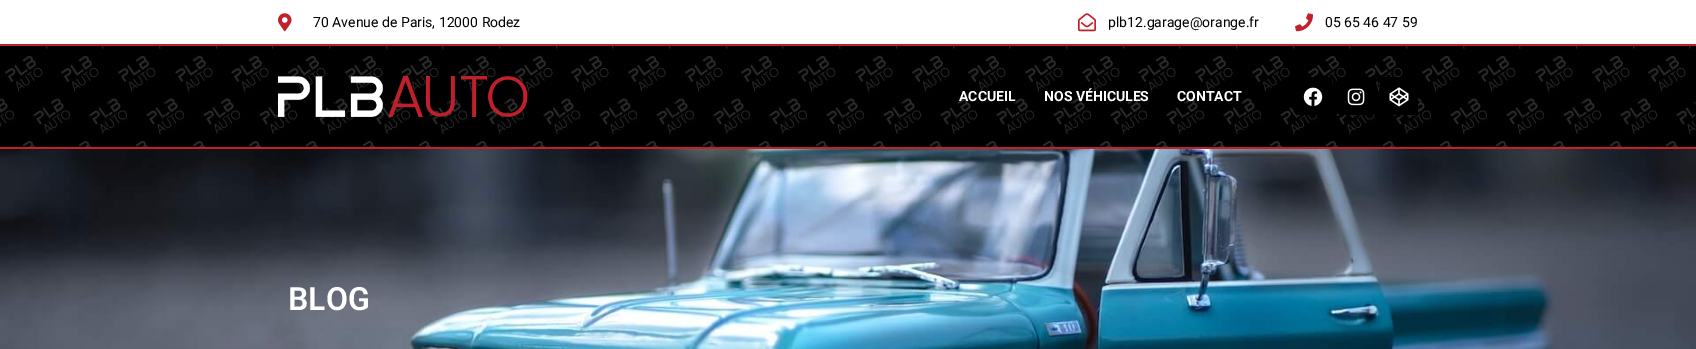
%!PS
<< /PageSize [1696 349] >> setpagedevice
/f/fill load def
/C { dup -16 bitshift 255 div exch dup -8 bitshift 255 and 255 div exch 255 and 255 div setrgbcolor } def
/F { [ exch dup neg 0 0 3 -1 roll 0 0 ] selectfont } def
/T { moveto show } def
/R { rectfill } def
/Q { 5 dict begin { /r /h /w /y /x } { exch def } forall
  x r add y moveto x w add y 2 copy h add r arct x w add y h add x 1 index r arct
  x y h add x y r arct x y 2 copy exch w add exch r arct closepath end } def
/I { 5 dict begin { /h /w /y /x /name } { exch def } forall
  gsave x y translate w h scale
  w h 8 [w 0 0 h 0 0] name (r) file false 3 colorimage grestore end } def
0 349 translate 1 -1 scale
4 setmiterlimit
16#FFFFFF C
0 0 1696 349 R
16#C1212B C
0 44 1696 2 R
(1.rgb) 278 13 14 19 I
/Roboto-Regular 14 F
16#000000 C
(70 Avenue de Paris, 12000 Rodez) 313 27 T
(2.rgb) 1078 13 18 19 I
(plb12.garage@orange.fr) 1108 27 T
(3.rgb) 1295 13 18 19 I
(05 65 46 47 59) 1325 27 T
(4.rgb) 0 46 1696 101 I
16#C1212B C
0 147 1696 2 R
(5.rgb) 278 76 250 41 I
/Roboto-Bold 14 F
16#FFFFFF C
(ACCUEIL) 959 101 T
(NOS VÉHICULES) 1044 101 T
(CONTACT) 1177 101 T
16#000000 C
1294 77 38 38 4 Q f
(6.rgb) 1303 87 20 19 I
1337 77 38 38 4 Q f
(7.rgb) 1347 88 18 18 I
1380 77 38 38 4 Q f
(8.rgb) 1389 87 20 20 I
(9.rgb) 0 149 1696 200 I
/Roboto-SemiBold 32 F
16#FFFFFF C
(BLOG) 288 310 T
showpage
